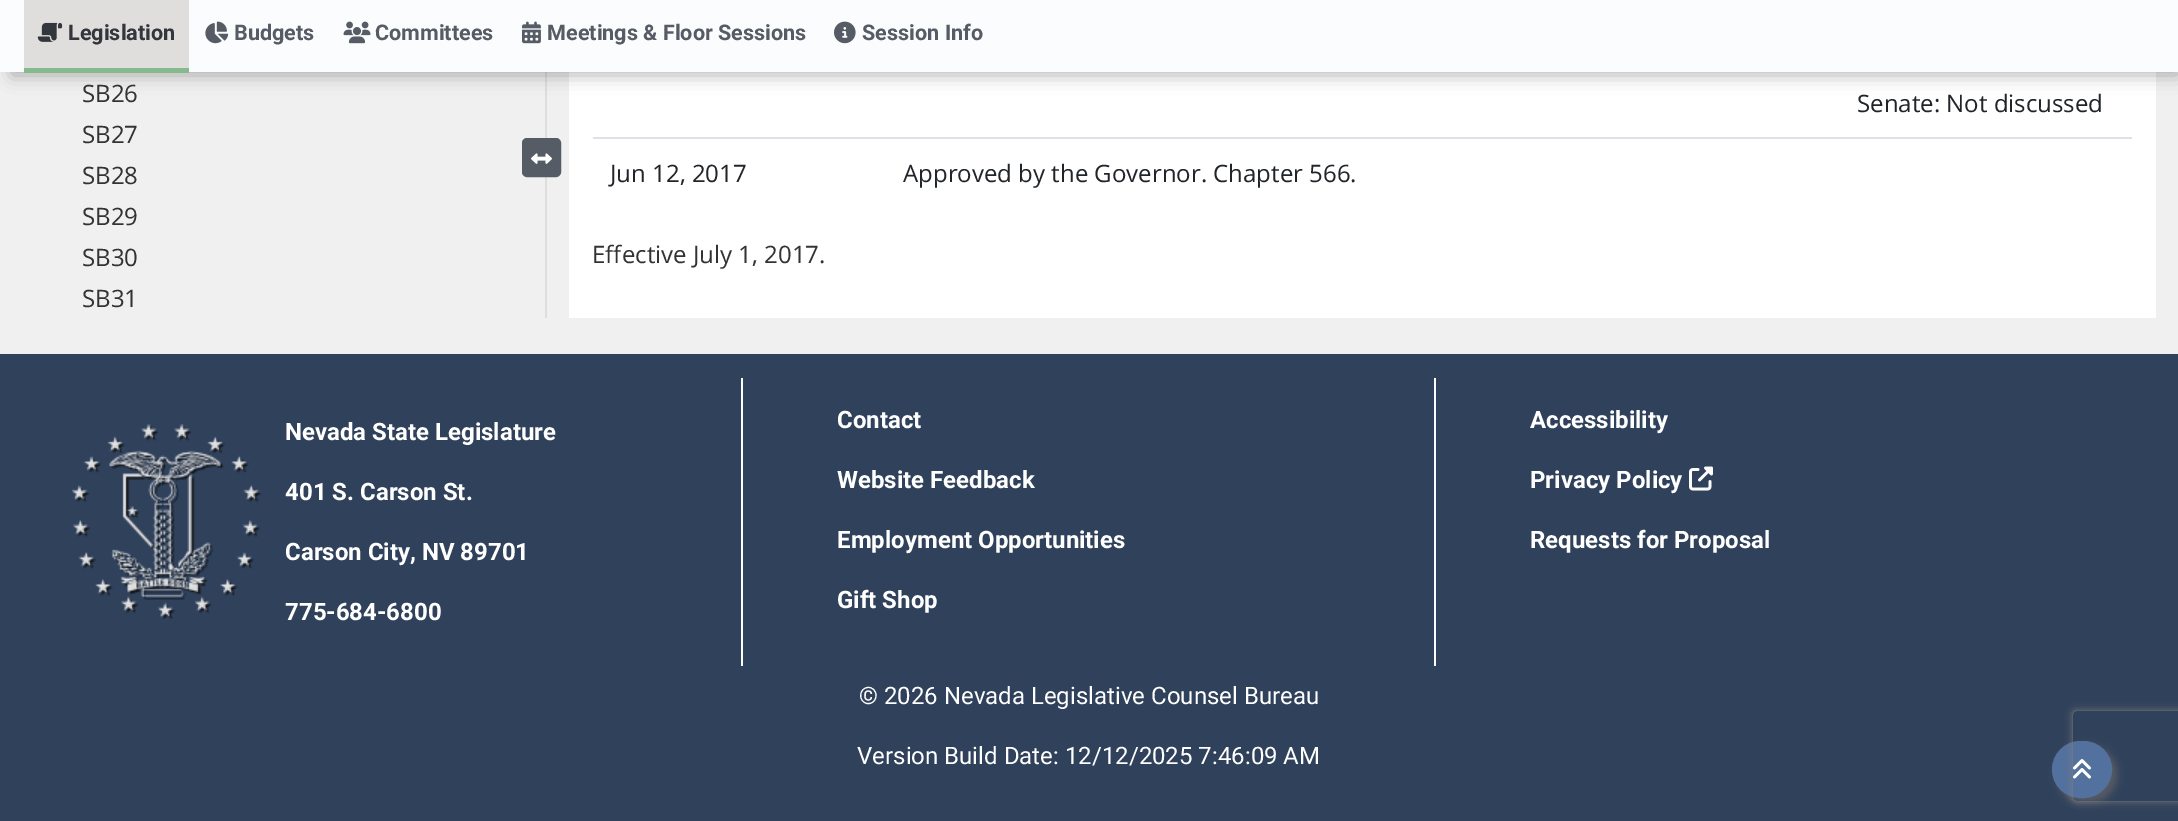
%!PS
<< /PageSize [2178 821] /PageUsesTransparency true >> setpagedevice
/m/moveto load def
/l/rlineto load def
/c/rcurveto load def
/z/closepath load def
/f/fill load def
/s/stroke load def
/q/gsave load def
/Q_/grestore load def
/w/setlinewidth load def
/C { dup -16 bitshift 255 div exch dup -8 bitshift 255 and 255 div exch 255 and 255 div setrgbcolor } def
/F { [ exch dup neg 0 0 3 -1 roll 0 0 ] selectfont } def
/T { moveto show } def
/R { rectfill } def
/A { dup .setfillconstantalpha .setstrokeconstantalpha } def
/Q { 5 dict begin { /r /h /w /y /x } { exch def } forall
  x r add y moveto x w add y 2 copy h add r arct x w add y h add x 1 index r arct
  x y h add x y r arct x y 2 copy exch w add exch r arct closepath end } def
/S { 12 dict begin { /a /b /q /h /w /y /x } { exch def } forall gsave /was 0 def
  9 -2 -9 { dup b mul 4 div /e exch def 1 sub .425 mul 2.718 exch exp 1 add a .99 .min exch div /now exch def
    1 1 now sub 1 was sub div sub A /was now def
    w h .min e 2 mul add 0 gt { x e sub y e sub w e 2 mul add h e 2 mul add
      q e add b .6 mul add w h .min 2 div e add .min 0 .max Q fill } if } for grestore end } def
/I { 5 dict begin { /h /w /y /x /name } { exch def } forall
  gsave x y translate w h scale
  w h 8 [w 0 0 h 0 0] name (r) file false 3 colorimage grestore end } def
0 .pushpdf14devicefilter
0 821 translate 1 -1 scale
4 setmiterlimit
16#F0F0F0 C
0 0 2178 821 R
16#E0DEDC C
545 72 2 246 R
16#FFFFFF C
569 72 1587 246 R
16#000000 C
12 15 2166 60 0 9 .3 S
16#FBFCFD C
0 0 2178 72 R
16#E0DEDC C
24 0 165 68 R
16#86B98E C
24 68 165 5 R
(1.rgb) 37 22 26 20 I
/Roboto-Bold 21.6 F
16#33363C C
(Legislation) 68 40 T
(2.rgb) 205 21 24 23 I
16#565C65 C
(Budgets) 234 40 T
(3.rgb) 343 21 28 23 I
(Committees) 375 40 T
(4.rgb) 522 21 19 23 I
(Meetings & Floor Sessions) 547 40 T
(5.rgb) 834 21 22 23 I
(Session Info) 862 40 T
/OpenSans-Regular 24 F
16#333333 C
(SB26) 82 102 T
(SB27) 82 143 T
(SB28) 82 184 T
(SB29) 82 225 T
(SB30) 82 266 T
(SB31) 82 307 T
16#565C65 C
523 139 37 37 4 Q q f Q_
2 w
s
(6.rgb) 531 153 21 11 I
16#212529 C
(Senate: Not discussed) 1857 112 T
16#DEE2E6 C
593 137 1539 2 R
16#212529 C
(Jun 12, 2017) 610 182 T
(Approved by the Governor. Chapter 566.) 903 182 T
16#333333 C
(Effective July 1, 2017.) 592 263 T
16#30415B C
0 354 2178 467 R
16#565C65 C
2057 746 60 57 28.5 4 1 S
16#53719E C
2053 742 58 55 27.5 Q q f Q_
s
(7.rgb) 2073 759 18 20 I
(8.rgb) 72 424 189 195 I
/Roboto-Bold 24 F
16#FFFFFF C
(Nevada State Legislature) 285 440 T
(401 S. Carson St.) 285 500 T
(Carson City, NV 89701) 285 560 T
(775-684-6800) 285 620 T
16#FCFCFC C
741 378 2 288 R
16#FFFFFF C
(Contact) 837 428 T
(Website Feedback) 837 488 T
(Employment Opportunities) 837 548 T
(Gift Shop) 837 608 T
16#FCFCFC C
1434 378 2 288 R
16#FFFFFF C
(Accessibility) 1530 428 T
(Privacy Policy) 1530 488 T
(9.rgb) 1689 466 24 25 I
(Requests for Proposal) 1530 548 T
/Roboto-Regular 24 F
(© 2026 Nevada Legislative Counsel Bureau) 859 704 T
(Version Build Date: 12/12/2025 7:46:09 AM) 857 764 T
q
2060 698 m 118 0 l 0 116 l -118 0 l z 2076 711 m 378 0 l 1.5 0 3 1.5 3 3 c 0 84 l 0 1.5 -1.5 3 -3 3 c -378 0 l -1.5 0 -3 -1.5 -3 -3 c 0 -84 l 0 -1.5 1.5 -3 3 -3 c z eoclip newpath
16#808080 C
2073 711 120 90 3 4 1 S
Q_
.poppdf14devicefilter showpage
